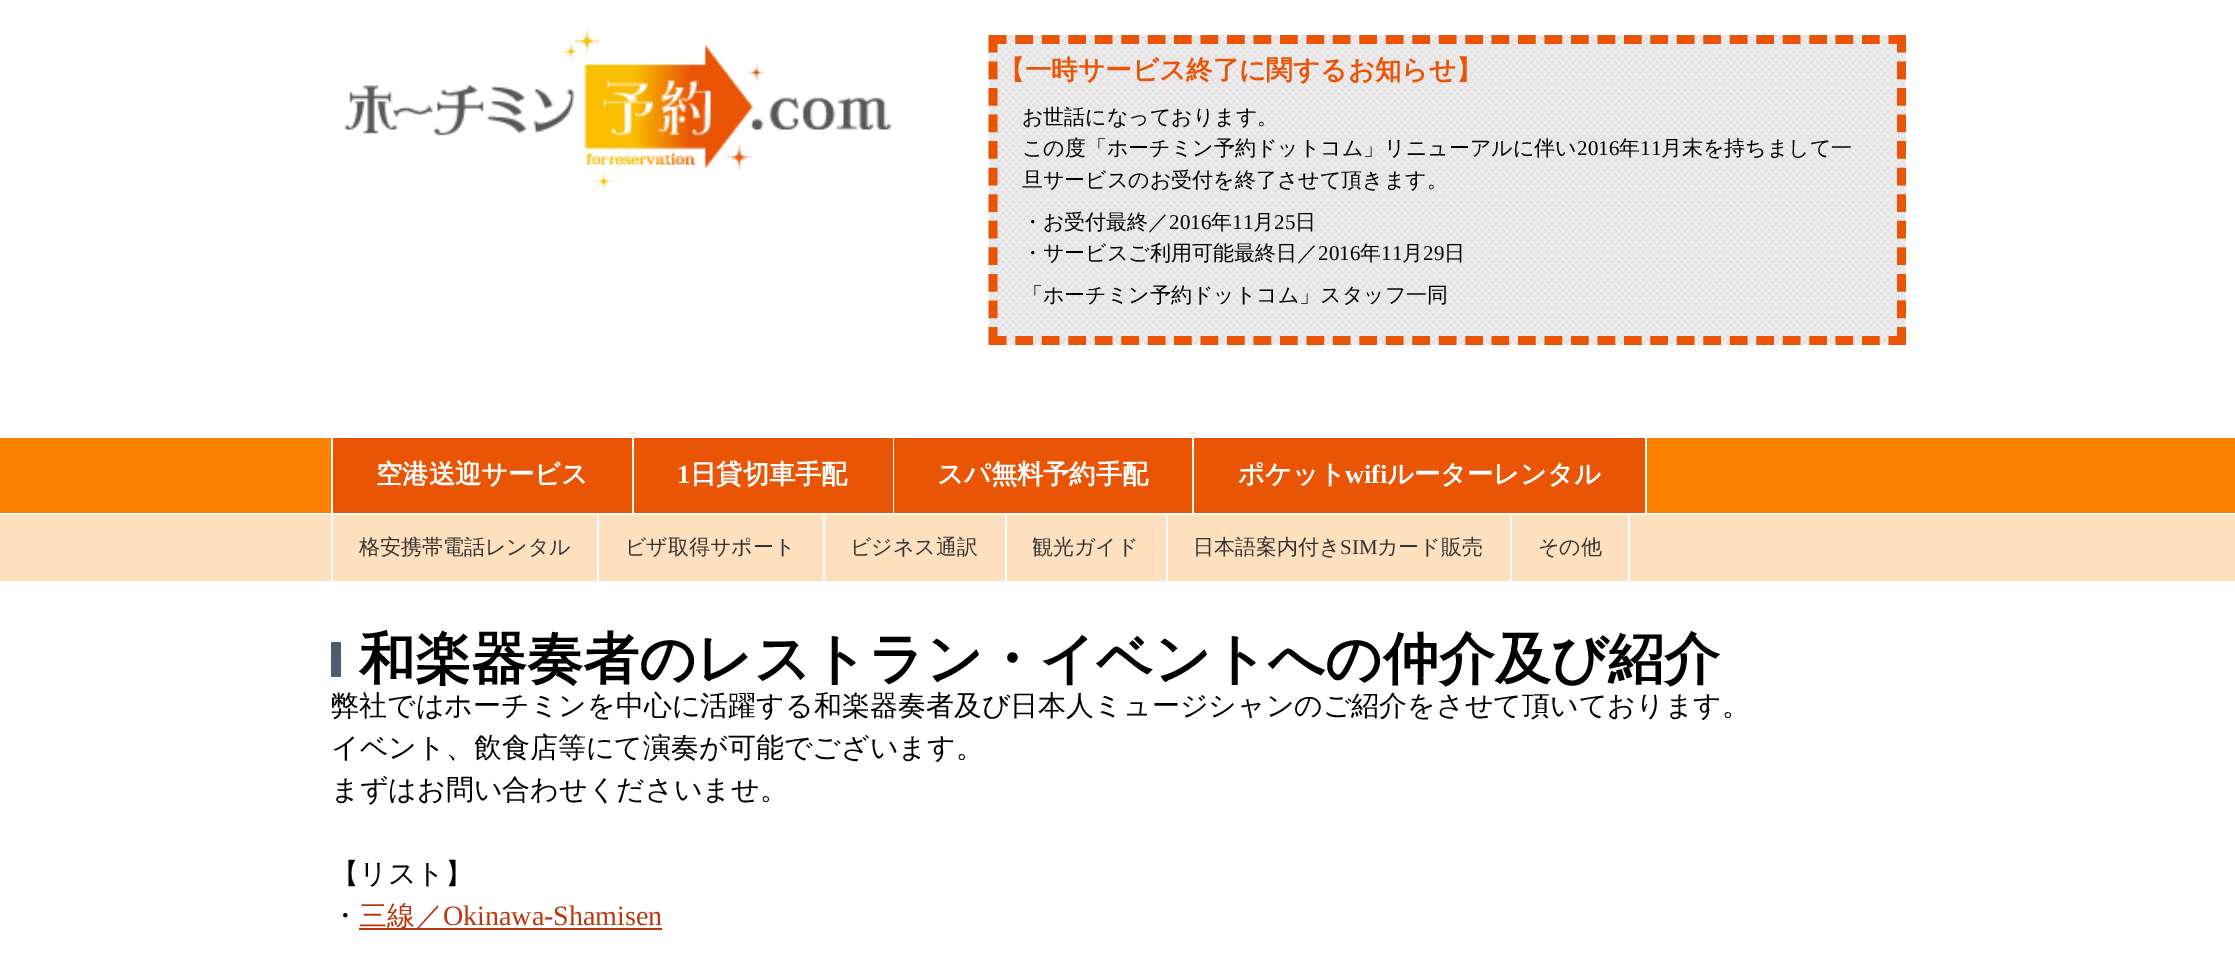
%!PS
<< /PageSize [2235 958] >> setpagedevice
/m/moveto load def
/l/rlineto load def
/s/stroke load def
/w/setlinewidth load def
/C { dup -16 bitshift 255 div exch dup -8 bitshift 255 and 255 div exch 255 and 255 div setrgbcolor } def
/F { [ exch dup neg 0 0 3 -1 roll 0 0 ] selectfont } def
/T { moveto show } def
/R { rectfill } def
/I { 5 dict begin { /h /w /y /x /name } { exch def } forall
  gsave x y translate w h scale
  w h 8 [w 0 0 h 0 0] name (r) file false 3 colorimage grestore end } def
0 958 translate 1 -1 scale
4 setmiterlimit
16#FFFFFF C
0 0 2235 958 R
(1.rgb) 344 27 548 163 I
(2.rgb) 988 35 918 310 I
16#E95504 C
8.8 w
[17.5 8.96] 0 setdash
989 39.5 m 917 0 l s
[17.5 9.06] 0 setdash
1901.5 35 m 0 310 l s
[17.5 8.96] 0 setdash
989 340.5 m 917 0 l s
[17.5 9.06] 0 setdash
993 35 m 0 310 l s
/WenQuanYiZenHei-Bold 26.6 F
(【一時サービス終了に関するお知らせ】) 998 79 T
/WenQuanYiZenHei-Medium 21 F
16#000000 C
(お世話になっております。) 1022 124 T
(この度「ホーチミン予約ドットコム」リニューアルに伴い) 1022 155 T
/LiberationSerif-Regular 21 F
(2016) 1577 155 T
/WenQuanYiZenHei-Medium 21 F
(年) 1619 155 T
/LiberationSerif-Regular 21 F
(11) 1640 155 T
/WenQuanYiZenHei-Medium 21 F
(月末を持ちまして一) 1661 155 T
(旦サービスのお受付を終了させて頂きます。) 1022 187 T
(・お受付最終／) 1022 229 T
/LiberationSerif-Regular 21 F
(2016) 1169 229 T
/WenQuanYiZenHei-Medium 21 F
(年) 1211 229 T
/LiberationSerif-Regular 21 F
(11) 1232 229 T
/WenQuanYiZenHei-Medium 21 F
(月) 1253 229 T
/LiberationSerif-Regular 21 F
(25) 1274 229 T
/WenQuanYiZenHei-Medium 21 F
(日) 1295 229 T
(・サービスご利用可能最終日／) 1022 260 T
/LiberationSerif-Regular 21 F
(2016) 1318 260 T
/WenQuanYiZenHei-Medium 21 F
(年) 1360 260 T
/LiberationSerif-Regular 21 F
(11) 1381 260 T
/WenQuanYiZenHei-Medium 21 F
(月) 1402 260 T
/LiberationSerif-Regular 21 F
(29) 1423 260 T
/WenQuanYiZenHei-Medium 21 F
(日) 1444 260 T
(「ホーチミン予約ドットコム」スタッフ一同) 1022 302 T
16#FA8200 C
0 438 2235 75 R
16#FFFFFF C
331 438 2 75 R
16#E95504 C
333 438 299 75 R
/WenQuanYiZenHei-Bold 26.25 F
16#FFFFFF C
(空港送迎サービス) 376 483 T
632 438 2 75 R
16#E95504 C
634 438 259 75 R
/LiberationSerif-Bold 26.25 F
16#FFFFFF C
(1) 677 483 T
/WenQuanYiZenHei-Bold 26.25 F
(日貸切車手配) 690 483 T
893 438 1 75 R
16#E95504 C
894 438 298 75 R
16#FFFFFF C
(スパ無料予約手配) 937 483 T
1645 438 2 75 R
1192 438 2 75 R
16#E95504 C
1194 438 451 75 R
16#FFFFFF C
(ポケット) 1238 483 T
/LiberationSerif-Bold 26.25 F
(wifi) 1345 483 T
/WenQuanYiZenHei-Bold 26.25 F
(ルーターレンタル) 1387 483 T
16#FFE0BE C
0 515 2235 66 R
16#FFFFFF C
331 515 2 66 R
/WenQuanYiZenHei-Medium 21 F
16#333333 C
(格安携帯電話レンタル) 359 554 T
16#FFFFFF C
597 515 2 66 R
16#333333 C
(ビザ取得サポート) 625 554 T
16#FFFFFF C
823 515 2 66 R
16#333333 C
(ビジネス通訳) 850 554 T
16#FFFFFF C
1005 515 2 66 R
16#333333 C
(観光ガイド) 1032 554 T
16#FFFFFF C
1166 515 2 66 R
16#333333 C
(日本語案内付き) 1193 554 T
/LiberationSerif-Regular 21 F
(SIM) 1340 554 T
/WenQuanYiZenHei-Medium 21 F
(カード販売) 1377 554 T
16#FFFFFF C
1628 515 2 66 R
1510 515 2 66 R
16#333333 C
(その他) 1538 554 T
16#4F5D72 C
331 642 10 35 R
/WenQuanYiZenHei-Bold 56 F
16#000000 C
(和楽器奏者のレストラン・イベントへの仲介及び紹介) 359 678 T
/WenQuanYiZenHei-Medium 28 F
(弊社ではホーチミンを中心に活躍する和楽器奏者及び日本人ミュージシャンのご紹介をさせて頂いております。) 331 715 T
(イベント、飲食店等にて演奏が可能でございます。) 331 757 T
(まずはお問い合わせくださいませ。) 331 799 T
(【リスト】) 331 883 T
(・) 331 925 T
16#BC360A C
359 928 303 2 R
(三線／) 359 925 T
/LiberationSerif-Regular 28 F
(Okinawa-Shamisen) 443 925 T
showpage
